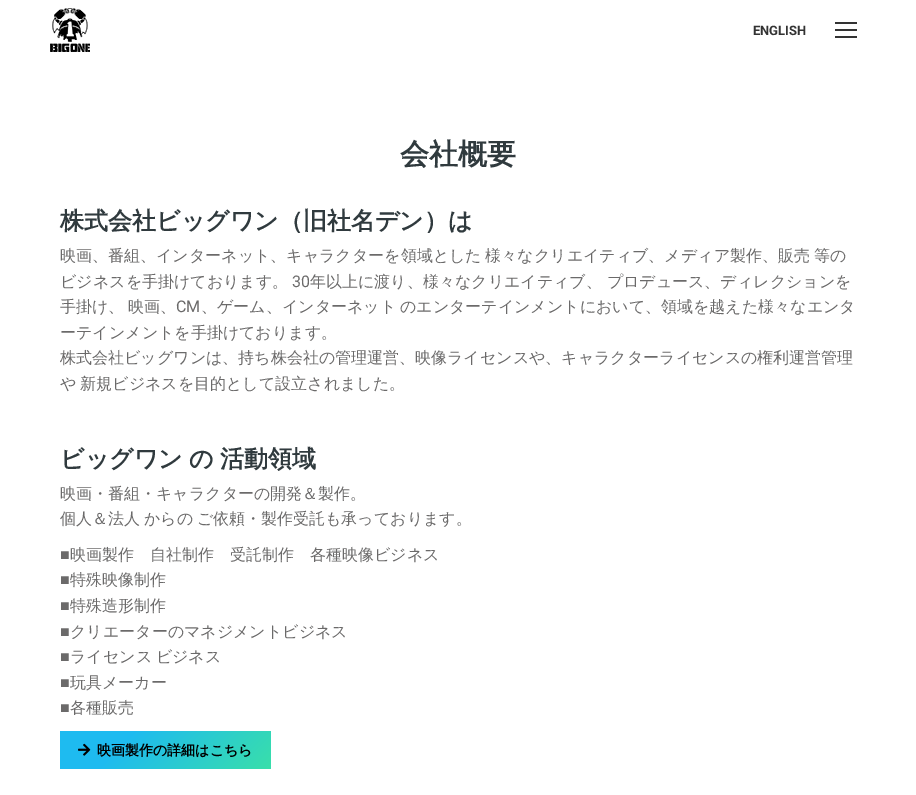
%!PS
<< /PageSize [916 795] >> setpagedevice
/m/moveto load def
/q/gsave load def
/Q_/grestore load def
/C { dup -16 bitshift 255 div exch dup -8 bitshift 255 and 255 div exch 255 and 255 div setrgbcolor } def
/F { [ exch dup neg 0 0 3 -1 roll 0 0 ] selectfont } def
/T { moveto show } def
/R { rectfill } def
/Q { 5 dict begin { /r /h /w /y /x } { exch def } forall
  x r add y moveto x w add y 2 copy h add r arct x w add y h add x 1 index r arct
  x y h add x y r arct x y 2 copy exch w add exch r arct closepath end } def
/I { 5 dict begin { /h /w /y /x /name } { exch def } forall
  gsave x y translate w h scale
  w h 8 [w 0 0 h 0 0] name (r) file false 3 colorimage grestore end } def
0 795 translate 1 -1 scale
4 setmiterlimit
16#FFFFFF C
0 0 916 795 R
(1.rgb) 50 8 40 44 I
/Roboto-Bold 13 F
16#333333 C
(ENGLISH) 753 35 T
835 22 22 2 R
835 29 22 2 R
835 36 22 2 R
/WenQuanYiZenHei-Bold 29 F
16#303A3E C
(会社概要) 400 164 T
/WenQuanYiZenHei-Bold 24 F
(株式会社ビッグワン（旧社名デン）は) 60 229 T
/WenQuanYiZenHei-Medium 16 F
16#6B6A6A C
60 261 m -1 0 32 (映画、番組、インターネット、キャラクターを領域とした 様々なクリエイティブ、メディア製作、販売 等の) widthshow
(ビジネスを手掛けております。) 60 287 T
/Roboto-Regular 16 F
(30) 292 287 T
/WenQuanYiZenHei-Medium 16 F
(年以上に渡り、様々なクリエイティブ、 プロデュース、ディレクションを) 310 287 T
60 312 m -1 0 32 (手掛け、 映画、) widthshow
/Roboto-Regular 16 F
(CM) 176 312 T
/WenQuanYiZenHei-Medium 16 F
201 312 m -1 0 32 (、ゲーム、インターネット のエンターテインメントにおいて、領域を越えた様々なエンタ) widthshow
(ーテインメントを手掛けております。) 60 338 T
(株式会社ビッグワンは、持ち株会社の管理運営、映像ライセンスや、キャラクターライセンスの権利運営管理) 60 363 T
60 389 m -1 0 32 (や 新規ビジネスを目的として設立されました。) widthshow
/WenQuanYiZenHei-Bold 24 F
16#303A3E C
60 467 m -1 0 32 (ビッグワン の 活動領域) widthshow
/WenQuanYiZenHei-Medium 16 F
16#6B6A6A C
(映画・番組・キャラクターの開発＆製作。) 60 499 T
60 524 m -1 0 32 (個人＆法人 からの ご依頼・製作受託も承っております。) widthshow
/LiberationSans-Regular 16 F
(■) 60 560 T
/WenQuanYiZenHei-Medium 16 F
(映画製作　自社制作　受託制作　各種映像ビジネス) 70 560 T
/LiberationSans-Regular 16 F
(■) 60 585 T
/WenQuanYiZenHei-Medium 16 F
(特殊映像制作) 70 585 T
/LiberationSans-Regular 16 F
(■) 60 611 T
/WenQuanYiZenHei-Medium 16 F
(特殊造形制作) 70 611 T
/LiberationSans-Regular 16 F
(■) 60 637 T
/WenQuanYiZenHei-Medium 16 F
(クリエーターのマネジメントビジネス) 70 637 T
/LiberationSans-Regular 16 F
(■) 60 662 T
/WenQuanYiZenHei-Medium 16 F
70 662 m -1 0 32 (ライセンス ビジネス) widthshow
/LiberationSans-Regular 16 F
(■) 60 688 T
/WenQuanYiZenHei-Medium 16 F
(玩具メーカー) 70 688 T
/LiberationSans-Regular 16 F
(■) 60 713 T
/WenQuanYiZenHei-Medium 16 F
(各種販売) 70 713 T
q 60 731 211 38 1 Q clip newpath
<< /ShadingType 2 /ColorSpace /DeviceRGB /Coords [103 688 228 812] /Extend [true true] /Function << /FunctionType 3 /Domain [0 1] /Functions [<< /FunctionType 2 /Domain [0 1] /C0 [.118 .733 .941] /C1 [.118 .733 .941] /N 1 >> << /FunctionType 2 /Domain [0 1] /C0 [.118 .733 .941] /C1 [.224 .875 .667] /N 1 >>] /Bounds [.3] /Encode [0 1 0 1] >> >> shfill Q_
(2.rgb) 78 743 13 13 I
/WenQuanYiZenHei-Bold 14 F
16#000000 C
(映画製作の詳細はこちら) 97 755 T
showpage
